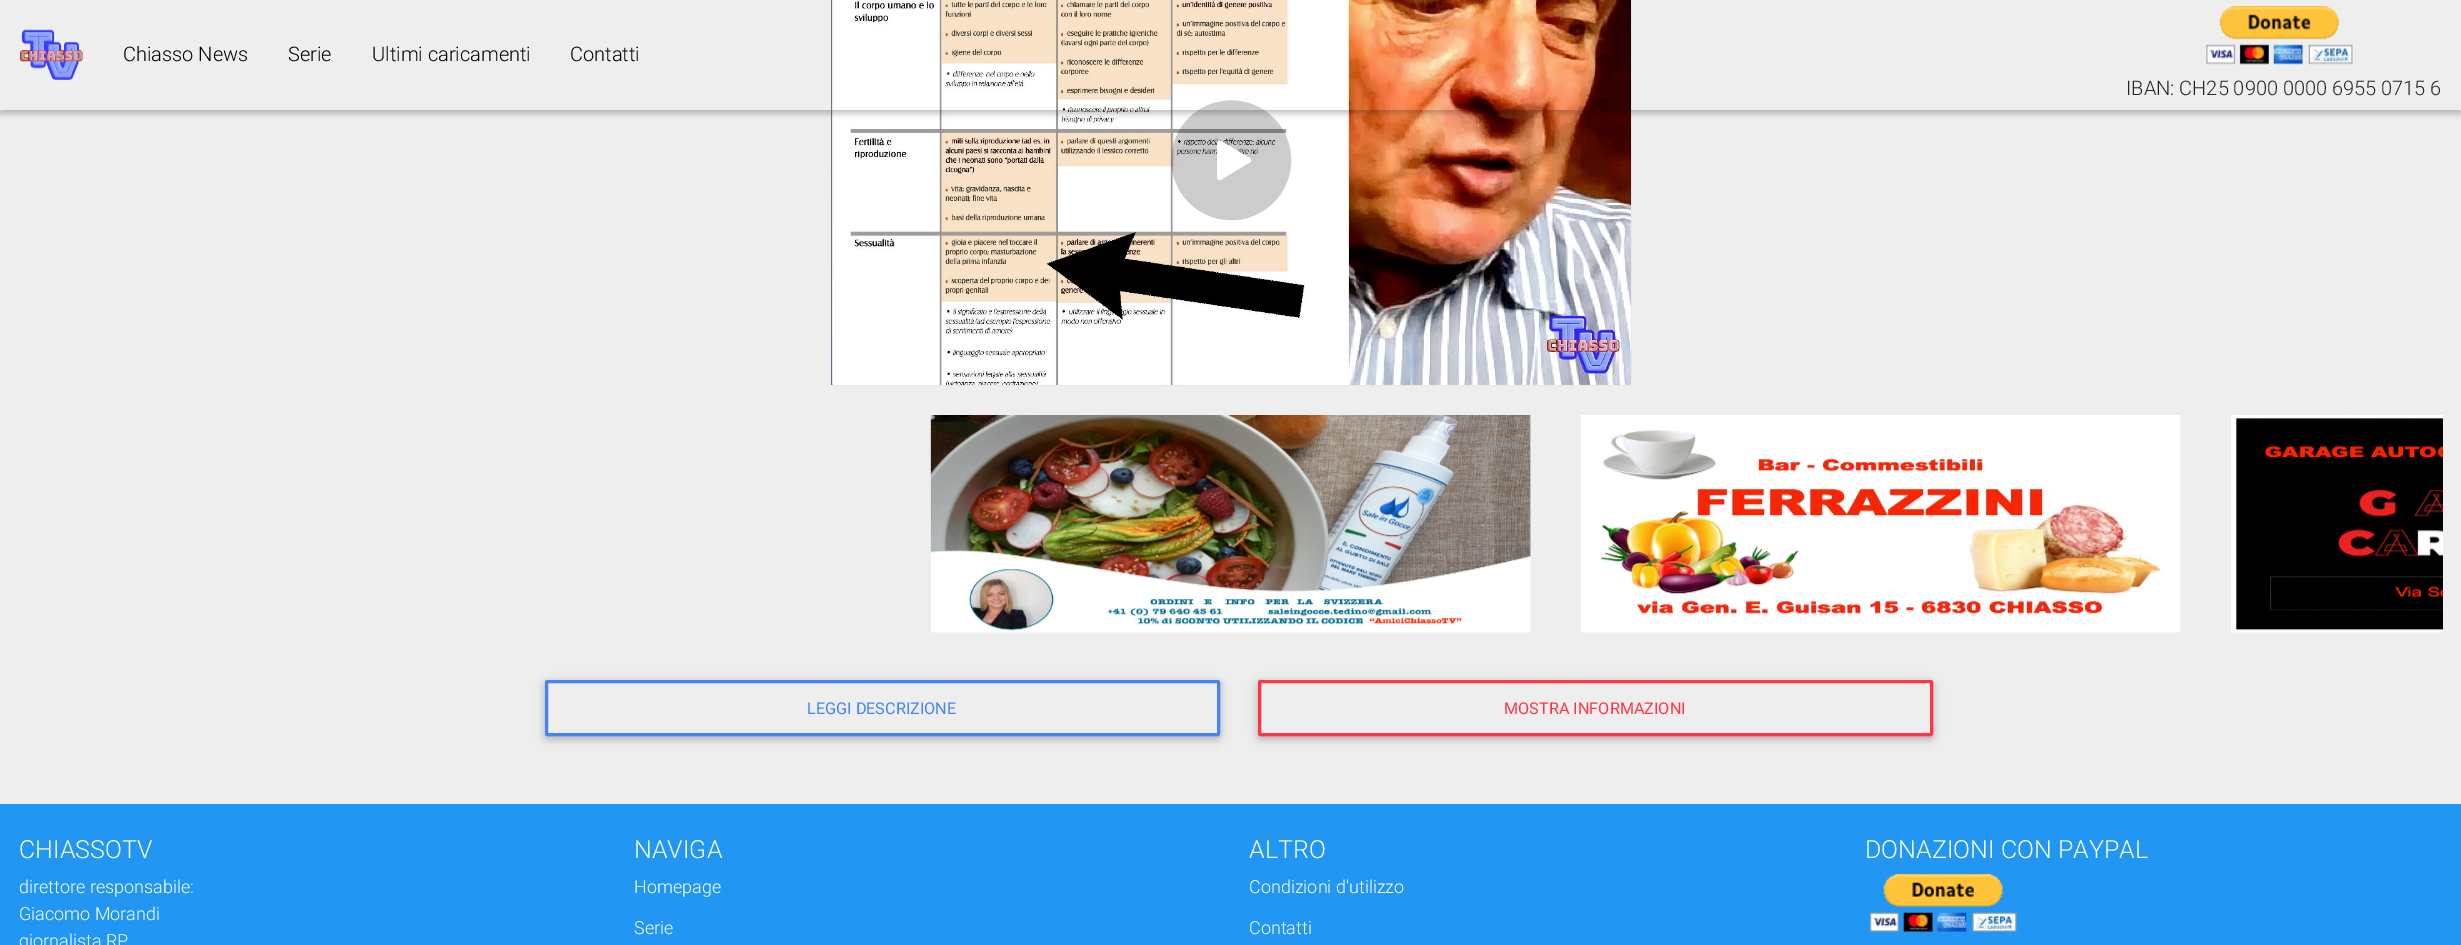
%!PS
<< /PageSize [2461 945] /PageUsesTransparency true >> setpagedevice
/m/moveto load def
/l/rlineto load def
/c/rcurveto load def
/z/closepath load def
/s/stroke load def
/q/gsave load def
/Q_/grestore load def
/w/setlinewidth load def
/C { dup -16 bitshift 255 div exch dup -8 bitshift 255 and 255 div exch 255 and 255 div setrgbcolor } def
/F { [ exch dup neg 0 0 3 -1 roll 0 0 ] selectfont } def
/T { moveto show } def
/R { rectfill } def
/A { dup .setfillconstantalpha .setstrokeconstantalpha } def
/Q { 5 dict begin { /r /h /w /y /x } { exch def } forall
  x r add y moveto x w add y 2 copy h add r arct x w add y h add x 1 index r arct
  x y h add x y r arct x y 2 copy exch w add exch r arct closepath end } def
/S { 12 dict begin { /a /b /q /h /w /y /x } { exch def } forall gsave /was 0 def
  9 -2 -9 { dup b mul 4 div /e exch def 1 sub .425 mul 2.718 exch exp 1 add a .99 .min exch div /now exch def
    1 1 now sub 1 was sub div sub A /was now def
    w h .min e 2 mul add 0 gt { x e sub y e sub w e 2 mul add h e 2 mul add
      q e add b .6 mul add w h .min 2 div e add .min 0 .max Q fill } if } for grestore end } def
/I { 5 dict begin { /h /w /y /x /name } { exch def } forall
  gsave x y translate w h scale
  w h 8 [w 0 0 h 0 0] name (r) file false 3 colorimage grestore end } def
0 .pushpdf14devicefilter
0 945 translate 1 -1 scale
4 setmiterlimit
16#EEEEEE C
0 0 2461 945 R
(3.rgb) 831 0 801 386 I
q
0 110 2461 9 rectclip
16#000000 C
0 3 2461 110 0 6 .12 S
Q_
q
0 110 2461 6 rectclip
16#000000 C
0 3 2461 110 0 3 .16 S
Q_
(1.rgb) 20 29 63 51 I
/Roboto-Light 20 F
16#000000 C
(Chiasso News) 123 61 T
(Serie) 288 61 T
(Ultimi caricamenti) 372 61 T
(Contatti) 570 61 T
(2.rgb) 2206 6 147 59 I
16#212529 C
(IBAN: CH25 0900 0000 6955 0715 6) 2126 95 T
(4.rgb) 930 415 601 218 I
(5.rgb) 1581 415 600 218 I
(6.rgb) 2231 415 212 218 I
q
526 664 m 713 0 l 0 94 l -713 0 l z 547.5 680 m 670 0 l 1.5 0 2.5 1 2.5 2.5 c 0 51 l 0 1.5 -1 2.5 -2.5 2.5 c -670 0 l -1.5 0 -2.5 -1 -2.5 -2.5 c 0 -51 l 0 -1.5 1 -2.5 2.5 -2.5 c z eoclip newpath
16#000000 C
545 683 675 56 2.5 6 .12 S
Q_
q
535 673 m 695 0 l 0 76 l -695 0 l z 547.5 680 m 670 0 l 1.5 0 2.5 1 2.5 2.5 c 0 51 l 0 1.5 -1 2.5 -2.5 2.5 c -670 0 l -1.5 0 -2.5 -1 -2.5 -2.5 c 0 -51 l 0 -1.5 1 -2.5 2.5 -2.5 c z eoclip newpath
16#000000 C
545 683 675 56 2.5 3 .16 S
Q_
16#4285F4 C
3 w
546.5 681.5 672 53 1 Q s
/Roboto-Regular 16.25 F
(LEGGI DESCRIZIONE) 807 714 T
q
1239 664 m 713 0 l 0 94 l -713 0 l z 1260.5 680 m 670 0 l 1.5 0 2.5 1 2.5 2.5 c 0 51 l 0 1.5 -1 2.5 -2.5 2.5 c -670 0 l -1.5 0 -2.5 -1 -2.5 -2.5 c 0 -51 l 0 -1.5 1 -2.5 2.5 -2.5 c z eoclip newpath
16#000000 C
1258 683 675 56 2.5 6 .12 S
Q_
q
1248 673 m 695 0 l 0 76 l -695 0 l z 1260.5 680 m 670 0 l 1.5 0 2.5 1 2.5 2.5 c 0 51 l 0 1.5 -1 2.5 -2.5 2.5 c -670 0 l -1.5 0 -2.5 -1 -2.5 -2.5 c 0 -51 l 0 -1.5 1 -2.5 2.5 -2.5 c z eoclip newpath
16#000000 C
1258 683 675 56 2.5 3 .16 S
Q_
16#FF3547 C
1259.5 681.5 672 53 1 Q s
(MOSTRA INFORMAZIONI) 1504 714 T
16#2196F3 C
0 804 2461 141 R
/Roboto-Light 25 F
16#FFFFFF C
(CHIASSOTV) 19 858 T
/Roboto-Light 18 F
(direttore responsabile:) 19 893 T
(Giacomo Morandi) 19 920 T
(giornalista RP) 19 947 T
/Roboto-Light 25 F
(NAVIGA) 634 858 T
/Roboto-Light 18 F
(Homepage) 634 893 T
(Serie) 634 934 T
/Roboto-Light 25 F
(ALTRO) 1249 858 T
/Roboto-Light 18 F
(Condizioni d'utilizzo) 1249 893 T
(Contatti) 1249 934 T
/Roboto-Light 25 F
(DONAZIONI CON PAYPAL) 1865 858 T
(7.rgb) 1869 874 148 58 I
.poppdf14devicefilter showpage
